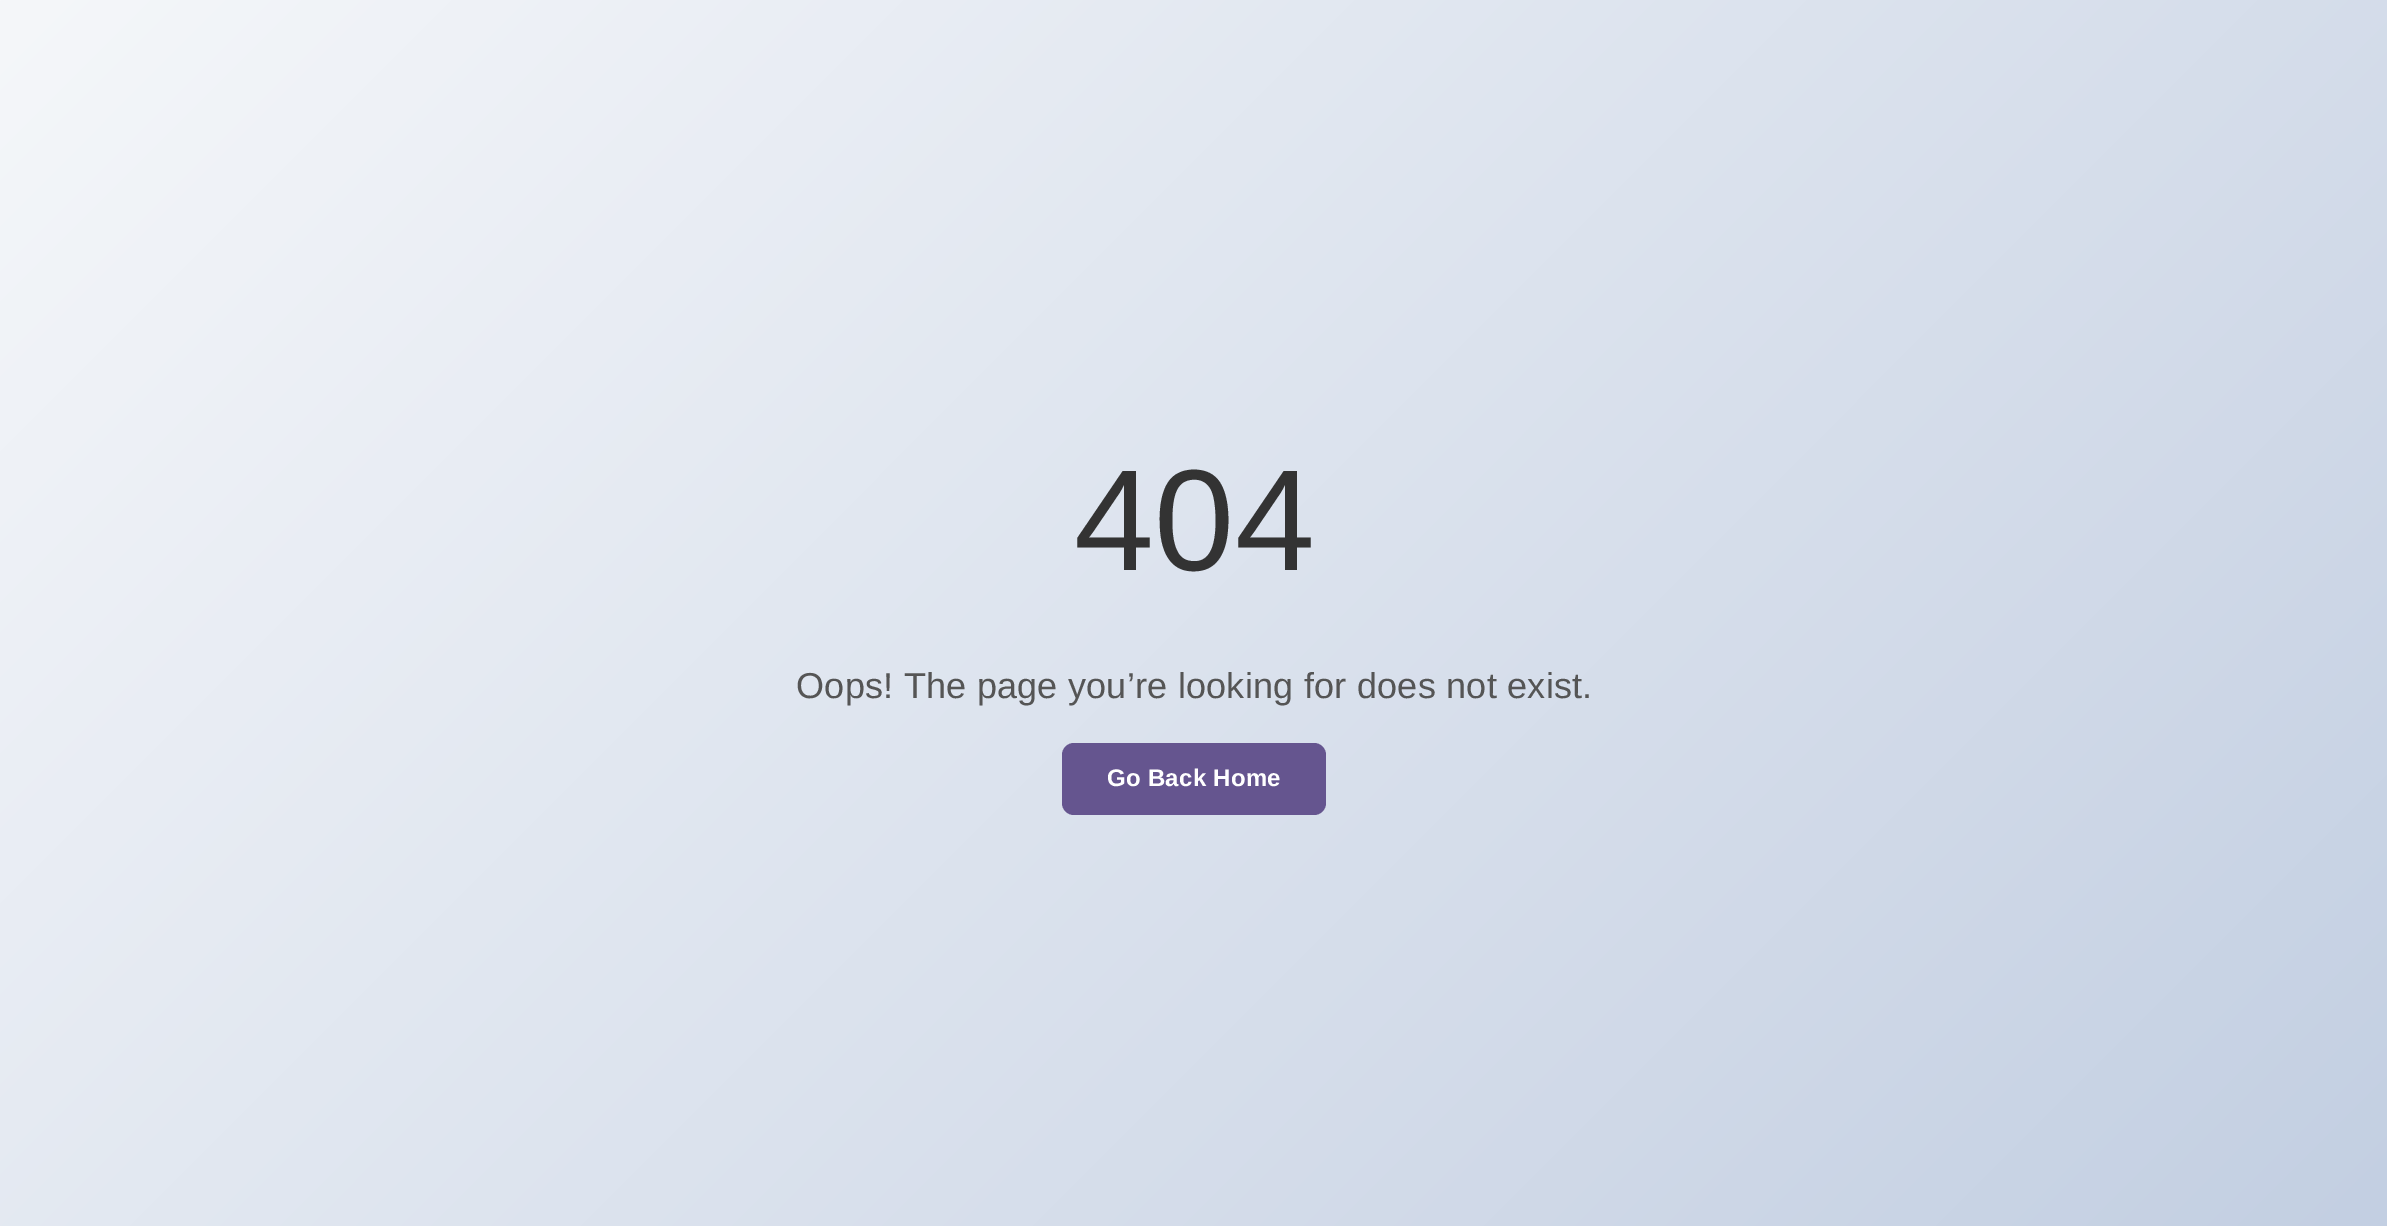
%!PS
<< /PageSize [2387 1226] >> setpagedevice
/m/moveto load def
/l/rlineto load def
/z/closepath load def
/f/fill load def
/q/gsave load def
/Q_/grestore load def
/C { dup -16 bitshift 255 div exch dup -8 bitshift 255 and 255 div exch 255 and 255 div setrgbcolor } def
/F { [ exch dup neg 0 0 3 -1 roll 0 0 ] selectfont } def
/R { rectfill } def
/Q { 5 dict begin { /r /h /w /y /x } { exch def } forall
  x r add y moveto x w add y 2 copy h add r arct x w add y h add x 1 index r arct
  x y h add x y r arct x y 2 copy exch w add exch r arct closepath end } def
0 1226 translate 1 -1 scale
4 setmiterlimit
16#FFFFFF C
0 0 2387 1226 R
q 0 0 m 2387 0 l 0 1226 l -2387 0 l z clip newpath
<< /ShadingType 2 /ColorSpace /DeviceRGB /Coords [290 -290 2098 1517] /Extend [true true] /Function << /FunctionType 2 /Domain [0 1] /C0 [.961 .969 .98] /C1 [.765 .812 .886] /N 1 >> >> shfill Q_
/LiberationSans-Regular 144 F
16#333333 C
1074 570 m .25 0 (404) ashow
/LiberationSans-Regular 36 F
16#555555 C
796 698 m .25 0 (Oops! The page you’re looking for does not exist.) ashow
16#65558F C
1062 743 264 72 12 Q f
/LiberationSans-Bold 24 F
16#FFFFFF C
1107 786 m .25 0 (Go Back Home) ashow
showpage
